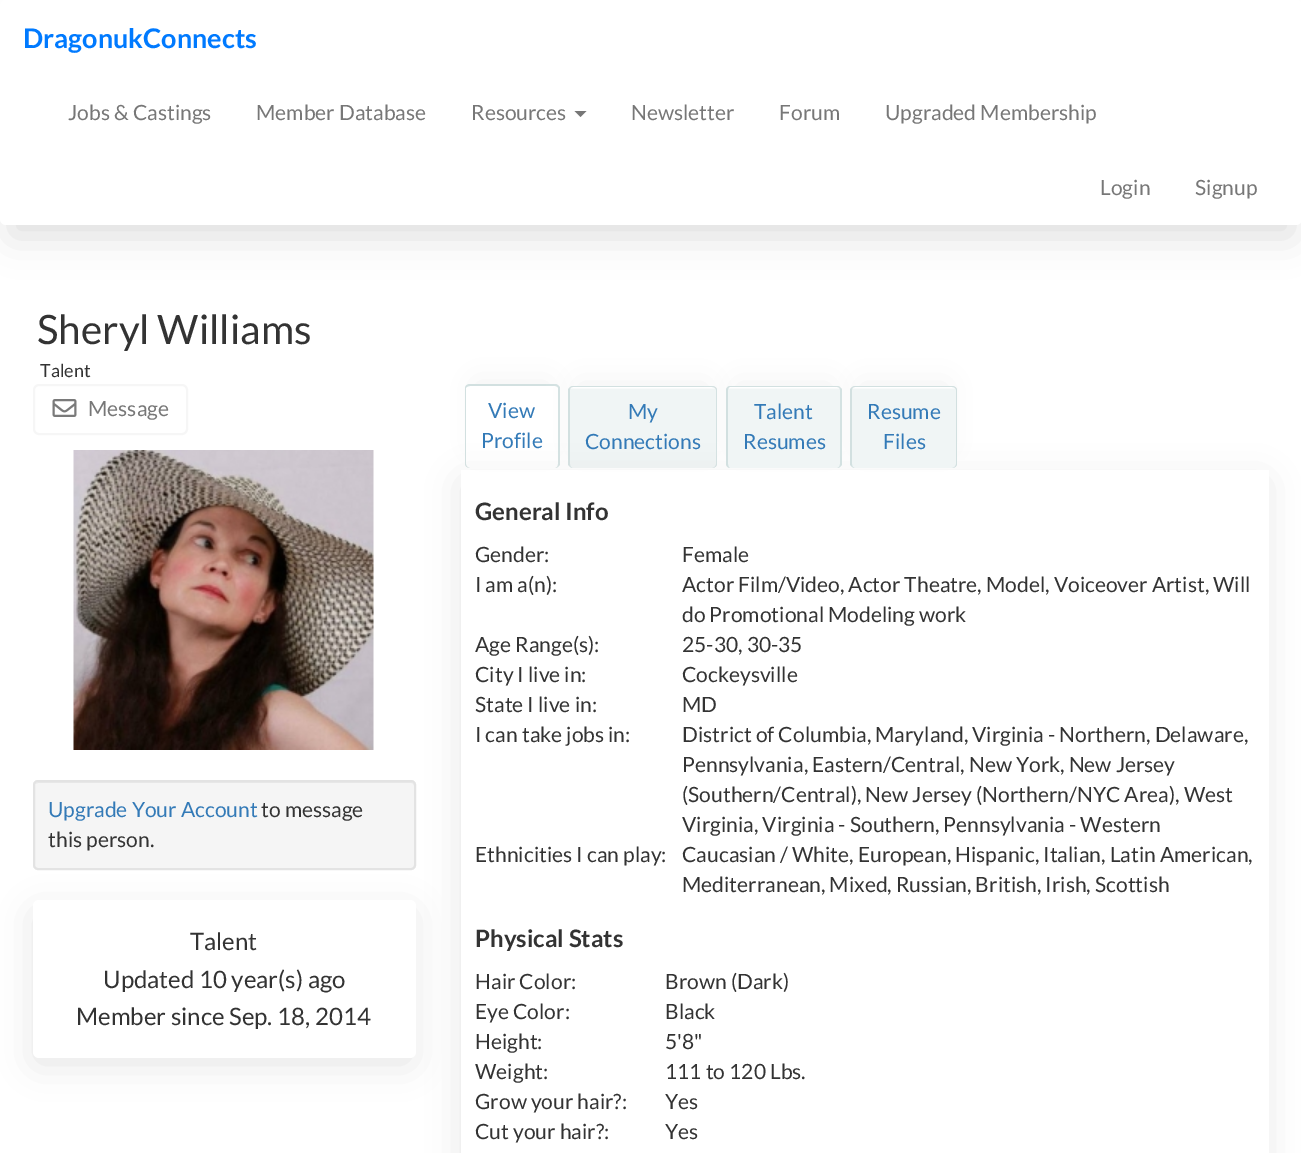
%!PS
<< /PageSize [1301 1153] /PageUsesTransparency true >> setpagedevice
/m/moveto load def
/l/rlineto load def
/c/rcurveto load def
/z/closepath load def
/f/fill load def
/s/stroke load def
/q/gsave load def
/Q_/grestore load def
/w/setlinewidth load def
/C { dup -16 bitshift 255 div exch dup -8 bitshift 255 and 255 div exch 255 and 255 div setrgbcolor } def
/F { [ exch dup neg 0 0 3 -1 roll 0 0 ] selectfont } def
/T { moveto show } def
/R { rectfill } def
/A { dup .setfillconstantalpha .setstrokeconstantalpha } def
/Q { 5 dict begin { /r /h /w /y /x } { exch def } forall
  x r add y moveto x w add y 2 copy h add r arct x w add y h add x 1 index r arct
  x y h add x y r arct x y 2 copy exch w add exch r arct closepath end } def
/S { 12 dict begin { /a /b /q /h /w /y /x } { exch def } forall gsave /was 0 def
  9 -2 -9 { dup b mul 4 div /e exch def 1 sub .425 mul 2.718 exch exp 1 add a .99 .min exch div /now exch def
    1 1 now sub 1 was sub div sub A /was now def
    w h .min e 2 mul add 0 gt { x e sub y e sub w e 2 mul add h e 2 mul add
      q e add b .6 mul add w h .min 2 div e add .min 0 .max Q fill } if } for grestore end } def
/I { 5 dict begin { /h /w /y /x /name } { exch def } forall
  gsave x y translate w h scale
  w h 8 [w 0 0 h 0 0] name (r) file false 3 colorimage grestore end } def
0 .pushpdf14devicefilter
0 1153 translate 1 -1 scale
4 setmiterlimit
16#FFFFFF C
0 0 1301 1153 R
16#C2C2C2 C
11 32 1281 204 0 19.5 .56 S
16#FFFFFF C
0 0 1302 225 6 Q f
/Lato-Bold 27 F
16#007AFF C
(DragonukConnects) 23 48 T
/Lato-Regular 21 F
16#777777 C
(Jobs & Castings) 68 120 T
(Member Database) 256 120 T
(Resources) 471 120 T
574.5 111 m 12 0 l -6 6 l z f
(Newsletter) 631 120 T
(Forum) 779 120 T
(Upgraded Membership) 885 120 T
(Login) 1100 195 T
(Signup) 1195 195 T
/Lato-Regular 40.5 F
16#333333 C
(Sheryl Williams) 37 344 T
/Lato-Regular 18 F
(Talent) 40 377 T
16#F6F6F6 C
2 w
34 385 153 49 5 Q s
(1.rgb) 52 399 25 18 I
/Lato-Regular 21 F
16#777777 C
(Message) 88 416 T
(2.rgb) 73 450 301 300 I
16#F5F5F5 C
33 780 383 90 5 Q f
16#E9E9E9 C
38 783 m 373 0 l 2 0 3 1 3 3 c 0 -2 -1 -4 -3 -4 c -373 0 l -3 2 l z f
16#E3E3E3 C
34 781 381 88 4 Q s
16#337AB7 C
(Upgrade Your Account) 48 817 T
16#333333 C
(to message) 261 817 T
(this person.) 48 847 T
16#E0E0E0 C
36 914 374 148 1.5 18 1 S
16#FFFFFF C
33 900 383 158 6 Q f
/Lato-Regular 24 F
16#333333 C
(Talent) 190 950 T
(Updated 10 year\(s\) ago) 103 988 T
(Member since Sep. 18, 2014) 76 1025 T
16#F0F0F0 C
476 383 73 63 0 15 1 S
16#FFFFFF C
465 384 95 84 5 Q f
16#D2E0E0 C
470 384 m 85 0 l 2 0 5 2 5 4 c 0 76 l 0 2 -3 4 -5 4 c -85 0 l -3 0 -5 -2 -5 -4 c 0 -76 l 0 -2 2 -4 5 -4 c z 470 386 m 85 0 l 2 0 3 1 3 2 c 0 76 l 0 2 -1 4 -3 4 c -85 0 l -2 0 -4 -2 -4 -4 c 0 -76 l 0 -1 2 -2 4 -2 c z eofill
16#F0F0F0 C
579 384 128 62 0 15 1 S
/Lato-Regular 21 F
16#337AB7 C
(View) 488 418 T
16#F0F5F5 C
569 386 148 82 5 Q f
(3.rgb) 570 387 146 2 I
16#D2E0E0 C
573 386 m 139 0 l 3 0 5 2 5 4 c 0 74 l 0 2 -2 4 -5 4 c -139 0 l -2 0 -5 -2 -5 -4 c 0 -74 l 0 -2 3 -4 5 -4 c z 573 387 m 139 0 l 2 0 4 1 4 3 c 0 74 l 0 2 -2 4 -4 4 c -139 0 l -2 0 -3 -2 -3 -4 c 0 -74 l 0 -2 1 -3 3 -3 c z eofill
q
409 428 m 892 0 l 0 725 l -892 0 l z 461 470 m 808 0 l 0 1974 l -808 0 l z eoclip newpath
16#E0E0E0 C
464 483 799 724 0 18 1 S
Q_
16#337AB7 C
(Profile) 481 448 T
(My) 628 419 T
16#F0F0F0 C
737 384 94 62 0 15 1 S
16#337AB7 C
(Connections) 585 449 T
16#F0F5F5 C
726 386 116 82 5 Q f
(4.rgb) 727 387 114 2 I
16#D2E0E0 C
730 386 m 107 0 l 2 0 5 2 5 4 c 0 74 l 0 2 -3 4 -5 4 c -107 0 l -2 0 -4 -2 -4 -4 c 0 -74 l 0 -2 2 -4 4 -4 c z 730 387 m 107 0 l 2 0 3 1 3 3 c 0 74 l 0 2 -1 4 -3 4 c -107 0 l -1 0 -2 -2 -2 -4 c 0 -74 l 0 -2 1 -3 2 -3 c z eofill
16#337AB7 C
(Talent) 754 419 T
(Resumes) 743 449 T
16#F0F0F0 C
861 384 86 62 0 15 1 S
16#F0F5F5 C
851 386 106 82 5 Q f
(5.rgb) 852 387 104 2 I
16#D2E0E0 C
855 386 m 97 0 l 3 0 5 2 5 4 c 0 74 l 0 2 -2 4 -5 4 c -97 0 l -2 0 -5 -2 -5 -4 c 0 -74 l 0 -2 3 -4 5 -4 c z 855 387 m 97 0 l 2 0 4 1 4 3 c 0 74 l 0 2 -2 4 -4 4 c -97 0 l -2 0 -3 -2 -3 -4 c 0 -74 l 0 -2 1 -3 3 -3 c z eofill
16#337AB7 C
(Resume) 867 419 T
(Files) 883 449 T
/Lato-Bold 24 F
16#333333 C
(General Info) 475 520 T
/Lato-Regular 21 F
(Gender:) 475 562 T
(Female) 682 562 T
(I am a\(n\):) 475 592 T
(Actor Film/Video, Actor Theatre, Model, Voiceover Artist, Will) 682 592 T
(do Promotional Modeling work) 682 622 T
(Age Range\(s\):) 475 652 T
(25-30, 30-35) 682 652 T
(City I live in:) 475 682 T
(Cockeysville) 682 682 T
(State I live in:) 475 712 T
(MD) 682 712 T
(I can take jobs in:) 475 742 T
(District of Columbia, Maryland, Virginia - Northern, Delaware,) 682 742 T
(Pennsylvania, Eastern/Central, New York, New Jersey) 682 772 T
(\(Southern/Central\), New Jersey \(Northern/NYC Area\), West) 682 802 T
(Virginia, Virginia - Southern, Pennsylvania - Western) 682 832 T
(Ethnicities I can play:) 475 862 T
(Caucasian / White, European, Hispanic, Italian, Latin American,) 682 862 T
(Mediterranean, Mixed, Russian, British, Irish, Scottish) 682 892 T
/Lato-Bold 24 F
(Physical Stats) 475 947 T
/Lato-Regular 21 F
(Hair Color:) 475 989 T
(Brown \(Dark\)) 665 989 T
(Eye Color:) 475 1019 T
(Black) 665 1019 T
(Height:) 475 1049 T
(5'8") 665 1049 T
(Weight:) 475 1079 T
(111 to 120 Lbs.) 665 1079 T
(Grow your hair?:) 475 1109 T
(Yes) 665 1109 T
(Cut your hair?:) 475 1139 T
(Yes) 665 1139 T
.poppdf14devicefilter showpage
